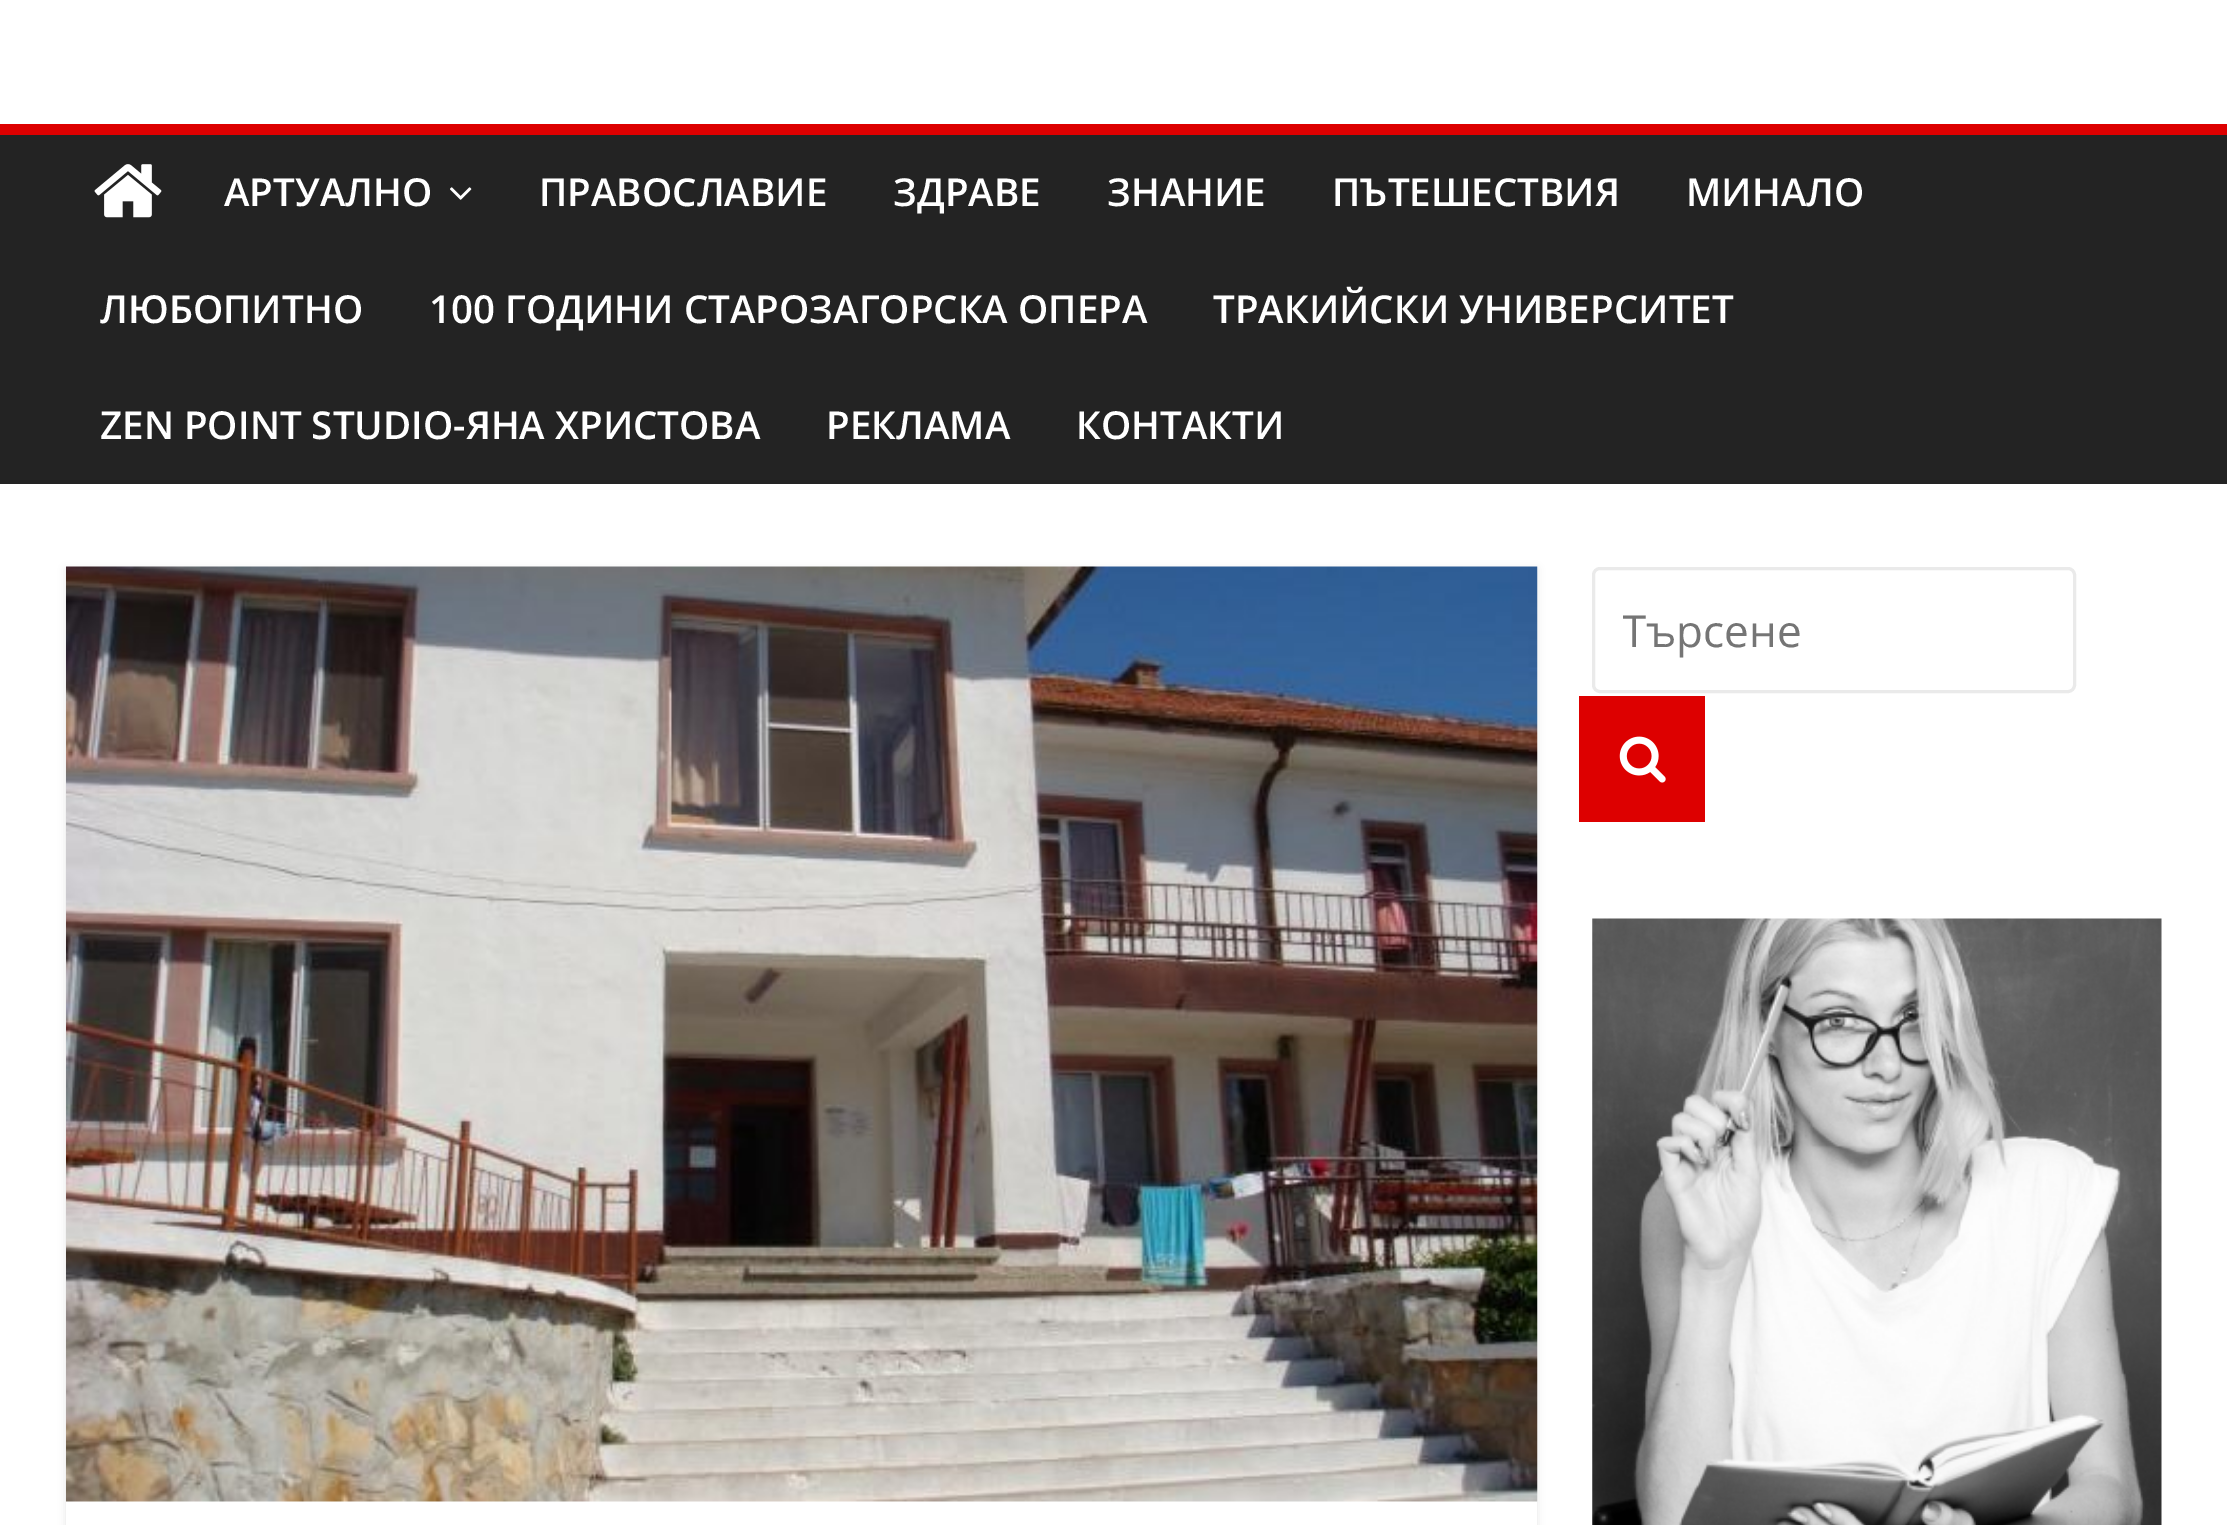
%!PS
<< /PageSize [2227 1525] /PageUsesTransparency true >> setpagedevice
/m/moveto load def
/l/rlineto load def
/z/closepath load def
/s/stroke load def
/q/gsave load def
/Q_/grestore load def
/w/setlinewidth load def
/C { dup -16 bitshift 255 div exch dup -8 bitshift 255 and 255 div exch 255 and 255 div setrgbcolor } def
/F { [ exch dup neg 0 0 3 -1 roll 0 0 ] selectfont } def
/T { moveto show } def
/R { rectfill } def
/A { dup .setfillconstantalpha .setstrokeconstantalpha } def
/Q { 5 dict begin { /r /h /w /y /x } { exch def } forall
  x r add y moveto x w add y 2 copy h add r arct x w add y h add x 1 index r arct
  x y h add x y r arct x y 2 copy exch w add exch r arct closepath end } def
/S { 12 dict begin { /a /b /q /h /w /y /x } { exch def } forall gsave /was 0 def
  9 -2 -9 { dup b mul 4 div /e exch def 1 sub .425 mul 2.718 exch exp 1 add a .99 .min exch div /now exch def
    1 1 now sub 1 was sub div sub A /was now def
    w h .min e 2 mul add 0 gt { x e sub y e sub w e 2 mul add h e 2 mul add
      q e add b .6 mul add w h .min 2 div e add .min 0 .max Q fill } if } for grestore end } def
/I { 5 dict begin { /h /w /y /x /name } { exch def } forall
  gsave x y translate w h scale
  w h 8 [w 0 0 h 0 0] name (r) file false 3 colorimage grestore end } def
0 .pushpdf14devicefilter
0 1525 translate 1 -1 scale
4 setmiterlimit
16#FFFFFF C
0 0 2227 1525 R
16#232323 C
0 135 2227 349 R
16#DD0000 C
0 124 2227 11 R
(1.rgb) 94 164 68 54 I
/OpenSans-SemiBold 38.5 F
16#FFFFFF C
(АРТУАЛНО) 224 206 T
(2.rgb) 450 187 22 13 I
(ПРАВОСЛАВИЕ) 539 206 T
(ЗДРАВЕ) 893 206 T
(ЗНАНИЕ) 1107 206 T
(ПЪТЕШЕСТВИЯ) 1332 206 T
(МИНАЛО) 1686 206 T
(ЛЮБОПИТНО) 100 323 T
(100 ГОДИНИ СТАРОЗАГОРСКА ОПЕРА) 429 323 T
(ТРАКИЙСКИ УНИВЕРСИТЕТ) 1213 323 T
(ZEN POINT STUDIO-ЯНА ХРИСТОВА) 100 439 T
(РЕКЛАМА) 826 439 T
(КОНТАКТИ) 1076 439 T
q
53 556 m 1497 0 l 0 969 l -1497 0 l z 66 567 m 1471 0 l 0 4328 l -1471 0 l z eoclip newpath
16#000000 C
66 569 1471 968 0 4 .1 S
Q_
(3.rgb) 66 566 1472 936 I
16#EAEAEA C
3 w
1593.5 568.5 481 123 6.5 Q s
q
1623 600 302 60 rectclip
/OpenSans-Regular 44 F
16#757575 C
(Търсене) 1622 647 T
Q_
16#DD0000 C
1579 696 126 126 R
(4.rgb) 1619 736 47 47 I
(5.rgb) 1592 918 570 607 I
.poppdf14devicefilter showpage
